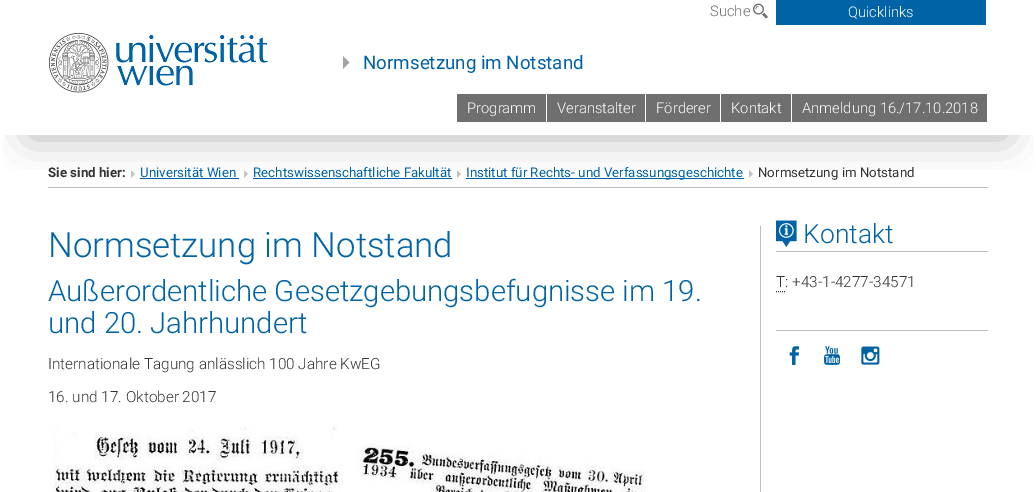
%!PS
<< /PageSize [1036 492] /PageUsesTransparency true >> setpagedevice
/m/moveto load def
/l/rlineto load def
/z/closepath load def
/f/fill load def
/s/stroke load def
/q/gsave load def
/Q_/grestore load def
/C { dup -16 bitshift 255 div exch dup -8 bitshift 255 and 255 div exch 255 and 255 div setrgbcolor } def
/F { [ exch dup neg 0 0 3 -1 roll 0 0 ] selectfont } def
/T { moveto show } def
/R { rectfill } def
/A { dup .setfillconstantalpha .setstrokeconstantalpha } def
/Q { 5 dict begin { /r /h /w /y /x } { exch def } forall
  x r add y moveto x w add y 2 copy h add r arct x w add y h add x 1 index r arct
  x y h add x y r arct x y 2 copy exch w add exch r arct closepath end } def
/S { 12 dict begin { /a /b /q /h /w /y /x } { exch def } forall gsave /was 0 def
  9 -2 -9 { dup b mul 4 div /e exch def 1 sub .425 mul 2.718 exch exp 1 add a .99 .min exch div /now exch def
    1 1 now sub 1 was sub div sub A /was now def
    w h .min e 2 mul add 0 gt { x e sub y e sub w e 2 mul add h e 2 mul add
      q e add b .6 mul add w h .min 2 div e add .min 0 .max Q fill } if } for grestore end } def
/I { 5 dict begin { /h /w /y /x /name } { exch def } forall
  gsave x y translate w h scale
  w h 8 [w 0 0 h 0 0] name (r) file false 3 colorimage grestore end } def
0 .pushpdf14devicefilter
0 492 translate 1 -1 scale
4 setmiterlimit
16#FFFFFF C
0 0 1036 492 R
16#C2C2C2 C
131 170 m 0 8 l 4 -4 l z f
16#0063A6 C
140 178 99 1 R
16#C2C2C2 C
244 170 m 0 8 l 4 -4 l z f
16#0063A6 C
253 178 199 1 R
16#C2C2C2 C
457 170 m 0 8 l 4 -4 l z f
16#0063A6 C
466 178 278 1 R
16#C2C2C2 C
749 170 m 0 8 l 4 -4 l z f
16#BDBDBD C
48 187 940 1 R
q
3 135 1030 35 rectclip
16#464646 C
29 14 978 123 0 20 .4 S
Q_
16#FFFFFF C
0 0 23 135 R
1013 0 23 135 R
/Roboto-Light 14.75 F
16#6F6F6F C
(Suche) 710 16 T
(1.rgb) 753 3 15 16 I
16#0063A6 C
776 0 210 25 R
16#FFFFFF C
(Quicklinks) 848 17 T
(2.rgb) 48 32 220 61 I
16#A4A4A4 C
343 56 m 0 13 l 6.5 -6.5 l z f
/Roboto-Regular 18.75 F
16#0063A6 C
(Normsetzung im Notstand) 363 69 T
16#6F6F6F C
457 94 89 28 R
/Roboto-Light 14.75 F
16#FFFFFF C
(Programm) 467 113 T
16#6F6F6F C
547 94 98 28 R
16#FFFFFF C
(Veranstalter) 557 113 T
16#6F6F6F C
646 94 74 28 R
16#FFFFFF C
(Förderer) 656 113 T
16#6F6F6F C
721 94 70 28 R
16#FFFFFF C
(Kontakt) 731 113 T
16#6F6F6F C
792 94 195 28 R
16#FFFFFF C
(Anmeldung 16./17.10.2018) 802 113 T
/Roboto-Bold 13.3 F
16#333333 C
(Sie sind hier:) 48 177 T
/Roboto-Regular 13.3 F
16#0063A6 C
(Universität Wien) 140 177 T
(Rechtswissenschaftliche Fakultät) 253 177 T
(Institut für Rechts- und Verfassungsgeschichte) 466 177 T
16#333333 C
(Normsetzung im Notstand) 758 177 T
16#BDBDBD C
760 226 1 266 R
/Roboto-Light 34.75 F
16#0063A6 C
(Normsetzung im Notstand) 48 257 T
/Roboto-Light 29.3 F
(Außerordentliche Gesetzgebungsbefugnisse im 19.) 48 301 T
(und 20. Jahrhundert) 48 333 T
/Roboto-Light 15.3 F
16#333333 C
(Internationale Tagung anlässlich 100 Jahre KwEG) 48 369 T
(16. und 17. Oktober 2017) 48 402 T
(3.rgb) 48 426 598 66 I
16#BDBDBD C
776 251 212 1 R
(4.rgb) 776 220 21 27 I
/Roboto-Light 26.5 F
16#0063A6 C
(Kontakt) 803 243 T
/Roboto-Light 15.3 F
16#333333 C
(T: +43-1-4277-34571) 776 287 T
[1 1] 0 setdash
776 291.5 m 9 0 l s
16#BDBDBD C
776 330 212 1 R
(5.rgb) 789 346 10 19 I
(6.rgb) 824 346 16 19 I
(7.rgb) 861 346 19 19 I
.poppdf14devicefilter showpage
